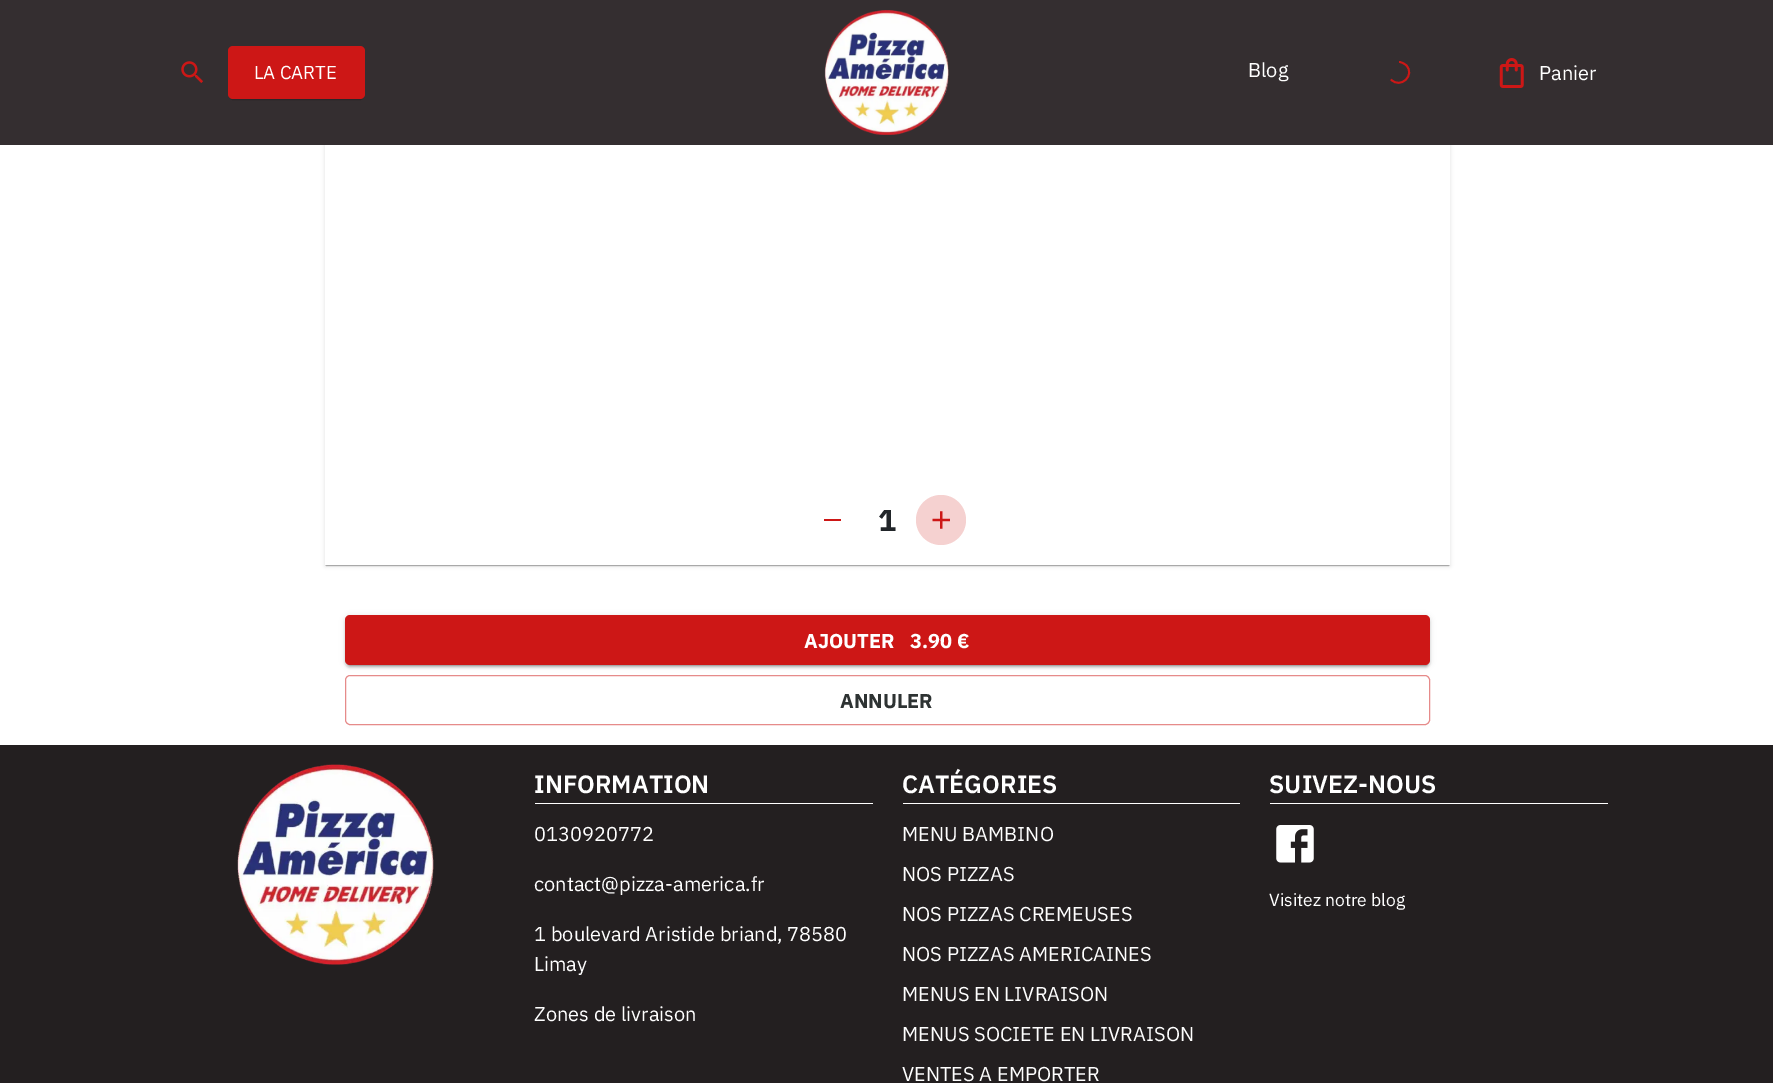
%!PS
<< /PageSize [1773 1083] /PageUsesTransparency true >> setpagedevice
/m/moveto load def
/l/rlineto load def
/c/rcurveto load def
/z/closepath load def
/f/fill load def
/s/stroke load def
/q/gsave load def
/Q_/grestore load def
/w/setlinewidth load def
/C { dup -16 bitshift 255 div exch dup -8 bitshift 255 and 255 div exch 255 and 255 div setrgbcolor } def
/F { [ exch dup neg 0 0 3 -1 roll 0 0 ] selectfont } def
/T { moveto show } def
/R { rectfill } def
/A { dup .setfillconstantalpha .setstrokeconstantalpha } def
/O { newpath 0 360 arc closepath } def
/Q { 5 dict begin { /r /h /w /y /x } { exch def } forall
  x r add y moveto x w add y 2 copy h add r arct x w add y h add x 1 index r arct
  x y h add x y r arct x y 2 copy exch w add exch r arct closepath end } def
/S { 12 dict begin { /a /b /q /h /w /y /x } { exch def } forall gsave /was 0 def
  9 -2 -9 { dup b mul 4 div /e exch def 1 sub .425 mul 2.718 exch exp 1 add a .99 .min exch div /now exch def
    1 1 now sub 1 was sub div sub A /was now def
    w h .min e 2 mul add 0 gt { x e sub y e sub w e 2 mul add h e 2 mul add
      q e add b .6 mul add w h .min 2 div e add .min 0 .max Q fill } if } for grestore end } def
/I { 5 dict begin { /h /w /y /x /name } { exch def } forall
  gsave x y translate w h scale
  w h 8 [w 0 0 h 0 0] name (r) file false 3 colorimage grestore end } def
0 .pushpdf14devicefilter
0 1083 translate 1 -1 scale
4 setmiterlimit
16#FFFFFF C
0 0 1773 1083 R
q
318 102 m 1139 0 l 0 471 l -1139 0 l z 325 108 m 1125 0 l 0 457 l -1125 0 l z eoclip newpath
16#000000 C
325 109 1125 457 0 2 .12 S
Q_
q
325 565 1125 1 rectclip
16#000000 C
325 109 1125 457 0 .5 .14 S
Q_
q
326 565 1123 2 rectclip
16#000000 C
326 111 1123 455 0 .5 .2 S
Q_
16#342E30 C
0 0 1773 145 R
(1.rgb) 181 61 22 22 I
16#000000 C
230 53 133 47 2.5 .5 .2 S
16#CD1716 C
228 46 137 53 5 Q f
/IBMPlexSans-Regular 18.75 F
16#FFFFFF C
(LA CARTE) 254 79 T
(2.rgb) 824 10 125 125 I
/IBMPlexSans-Regular 20 F
(Blog) 1248 77 T
16#CD1716 C
1.8 w
1399 62 m 2.5 0 5 1.5 7 3 c 10 10 -5.5 24.5 -15 14.5 c s
(3.rgb) 1499 58 25 30 I
16#FFFFFF C
(Panier) 1539 80 T
16#CD1716 C
824 519 17 2 R
/IBMPlexSans-Bold 30 F
16#212529 C
(1) 878 531 T
16#F5D1D0 C
941 520 25 O f
(4.rgb) 932 511 18 18 I
16#000000 C
345 616 1085 50 5 3 .12 S
345 618 1085 50 5 1 .14 S
348 621 1080 45 2.5 .5 .2 S
16#CD1716 C
345 615 1085 50 5 Q f
/IBMPlexSans-Bold 20 F
16#FFFFFF C
(AJOUTER) 804 648 T
(3.90 €) 910 648 T
16#E68B8A C
1 w
345.5 675.5 1084 49 4.5 Q s
16#2E3333 C
(ANNULER) 840 708 T
16#231F20 C
0 745 1773 338 R
(5.rgb) 237 764 197 201 I
16#FFFFFF C
535 803 338 1 R
/IBMPlexSans-SemiBold 25 F
(INFORMATION) 534 793 T
/IBMPlexSans-Regular 20 F
(0130920772) 534 841 T
(contact@pizza-america.fr) 534 891 T
(1 boulevard Aristide briand, 78580) 534 941 T
(Limay) 534 971 T
(Zones de livraison) 534 1021 T
903 803 337 1 R
/IBMPlexSans-SemiBold 25 F
(CATÉGORIES) 902 793 T
/IBMPlexSans-Regular 20 F
(MENU BAMBINO) 902 841 T
(NOS PIZZAS) 902 881 T
(NOS PIZZAS CREMEUSES) 902 921 T
(NOS PIZZAS AMERICAINES) 902 961 T
(MENUS EN LIVRAISON) 902 1001 T
(MENUS SOCIETE EN LIVRAISON) 902 1041 T
(VENTES A EMPORTER) 902 1081 T
1270 803 338 1 R
/IBMPlexSans-SemiBold 25 F
(SUIVEZ-NOUS) 1269 793 T
(6.rgb) 1276 825 38 38 I
/IBMPlexSans-Regular 17.5 F
(Visitez notre blog) 1269 906 T
.poppdf14devicefilter showpage
